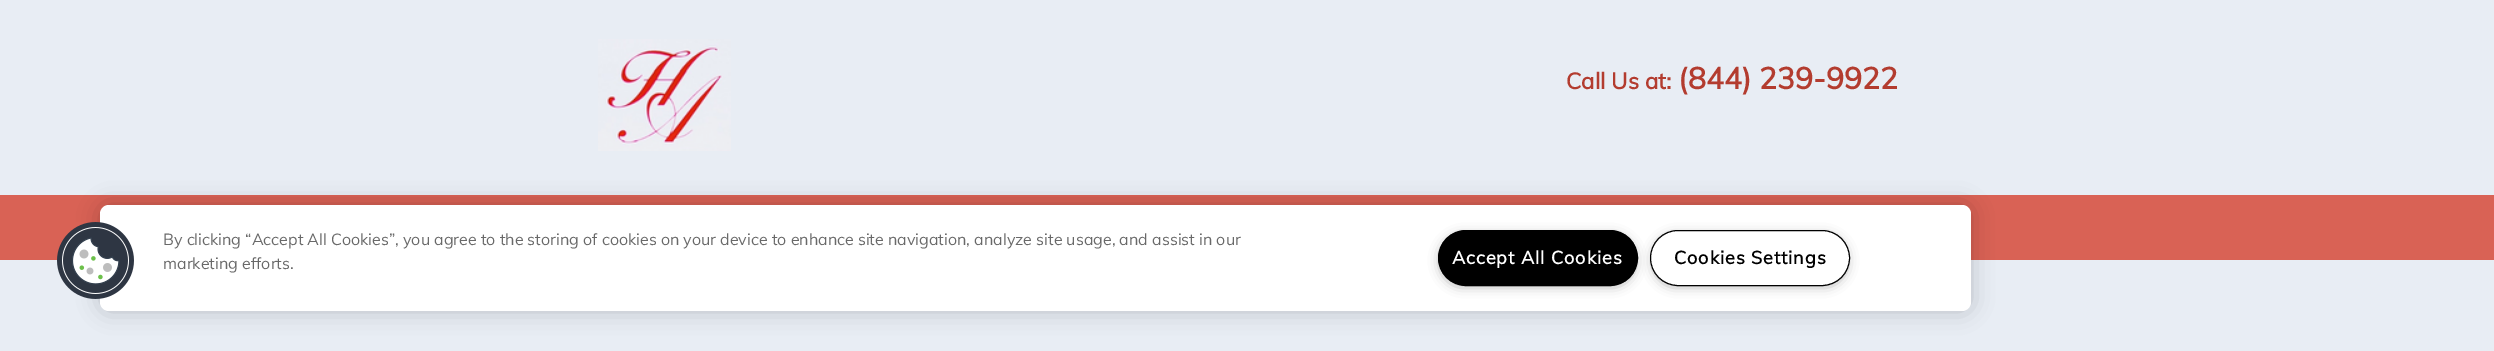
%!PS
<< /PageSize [2494 351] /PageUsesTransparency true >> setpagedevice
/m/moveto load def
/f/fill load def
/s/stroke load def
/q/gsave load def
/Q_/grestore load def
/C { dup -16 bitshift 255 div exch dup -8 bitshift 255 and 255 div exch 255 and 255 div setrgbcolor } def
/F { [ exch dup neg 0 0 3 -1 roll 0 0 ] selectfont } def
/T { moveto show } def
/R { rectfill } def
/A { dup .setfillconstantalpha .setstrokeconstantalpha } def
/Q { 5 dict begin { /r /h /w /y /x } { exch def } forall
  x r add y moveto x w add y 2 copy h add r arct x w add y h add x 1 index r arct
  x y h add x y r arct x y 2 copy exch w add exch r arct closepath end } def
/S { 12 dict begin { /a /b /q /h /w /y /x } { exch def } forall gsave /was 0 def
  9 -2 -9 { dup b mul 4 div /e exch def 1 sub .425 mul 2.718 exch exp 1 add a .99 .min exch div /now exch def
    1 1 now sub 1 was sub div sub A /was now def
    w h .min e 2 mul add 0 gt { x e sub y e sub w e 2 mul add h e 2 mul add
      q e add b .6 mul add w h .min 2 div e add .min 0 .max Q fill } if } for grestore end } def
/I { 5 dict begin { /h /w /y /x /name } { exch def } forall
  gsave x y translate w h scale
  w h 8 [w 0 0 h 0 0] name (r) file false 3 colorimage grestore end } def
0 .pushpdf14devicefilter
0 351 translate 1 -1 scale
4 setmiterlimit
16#E8EDF4 C
0 0 2494 351 R
(1.rgb) 598 39 133 112 I
/Muli-Bold 22.5 F
16#B33C2F C
(Call Us at:) 1566 89 T
/Muli-Bold 30 F
(\(844\) 239-9922) 1678 89 T
16#D96255 C
0 195 2494 65 R
16#000000 C
100 205 1871 106 9 11 .2 S
16#FFFFFF C
100 205 1871 106 9 Q f
(2.rgb) 57 222 77 77 I
/Muli-Regular 16 F
16#696969 C
(By clicking “Accept All Cookies”, you agree to the storing of cookies on your device to enhance site navigation, analyze site usage, and assist in our) 163 245 T
(marketing efforts.) 163 269 T
16#999999 C
1441 236 193 49 24.5 6 1 S
16#000000 C
1438.5 230.5 199 55 27.5 Q q f Q_
s
/Muli-Bold 18 F
16#FFFFFF C
1452 264 m .9 0 (Accept All Cookies) ashow
16#999999 C
1654 236 192 49 24.5 6 1 S
16#FFFFFF C
1650.5 230.5 199 55 27.5 Q q f Q_
16#000000 C
s
1674 264 m .9 0 (Cookies Settings) ashow
.poppdf14devicefilter showpage
